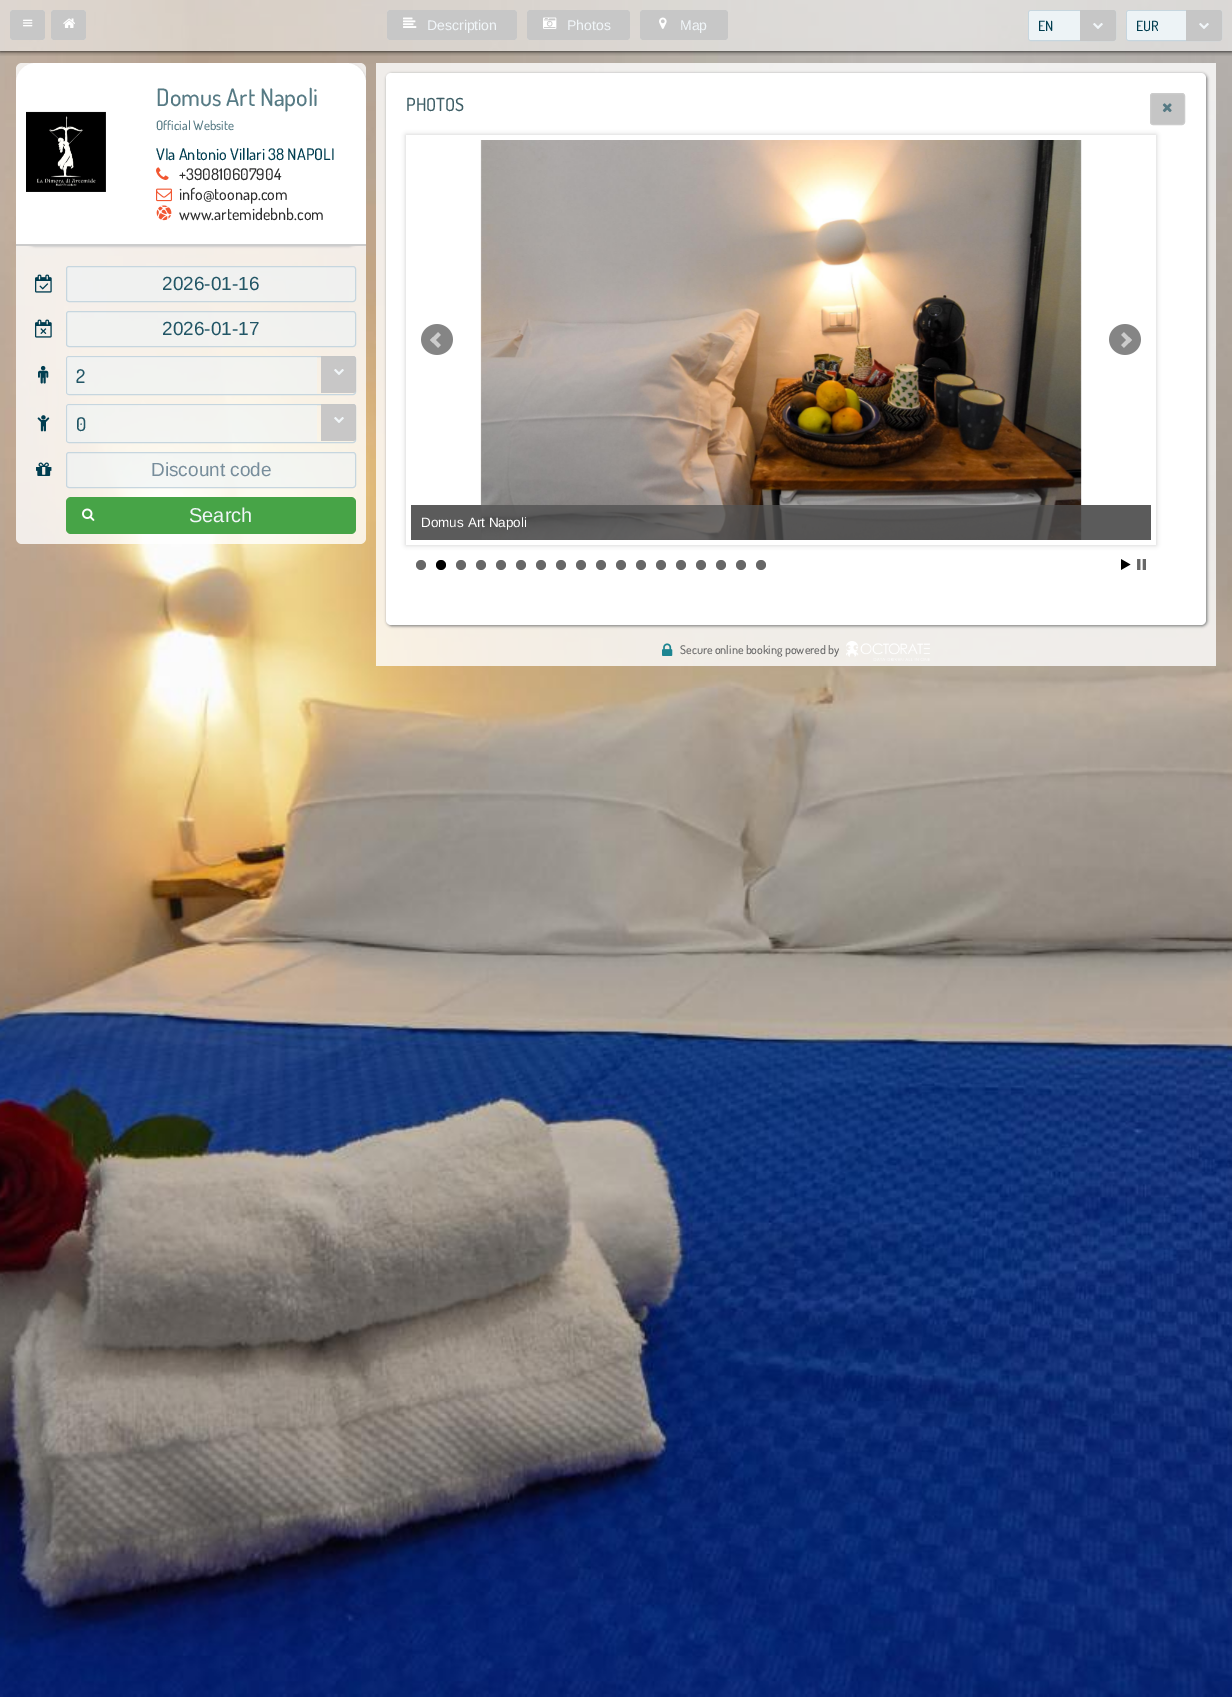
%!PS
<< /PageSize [1232 1697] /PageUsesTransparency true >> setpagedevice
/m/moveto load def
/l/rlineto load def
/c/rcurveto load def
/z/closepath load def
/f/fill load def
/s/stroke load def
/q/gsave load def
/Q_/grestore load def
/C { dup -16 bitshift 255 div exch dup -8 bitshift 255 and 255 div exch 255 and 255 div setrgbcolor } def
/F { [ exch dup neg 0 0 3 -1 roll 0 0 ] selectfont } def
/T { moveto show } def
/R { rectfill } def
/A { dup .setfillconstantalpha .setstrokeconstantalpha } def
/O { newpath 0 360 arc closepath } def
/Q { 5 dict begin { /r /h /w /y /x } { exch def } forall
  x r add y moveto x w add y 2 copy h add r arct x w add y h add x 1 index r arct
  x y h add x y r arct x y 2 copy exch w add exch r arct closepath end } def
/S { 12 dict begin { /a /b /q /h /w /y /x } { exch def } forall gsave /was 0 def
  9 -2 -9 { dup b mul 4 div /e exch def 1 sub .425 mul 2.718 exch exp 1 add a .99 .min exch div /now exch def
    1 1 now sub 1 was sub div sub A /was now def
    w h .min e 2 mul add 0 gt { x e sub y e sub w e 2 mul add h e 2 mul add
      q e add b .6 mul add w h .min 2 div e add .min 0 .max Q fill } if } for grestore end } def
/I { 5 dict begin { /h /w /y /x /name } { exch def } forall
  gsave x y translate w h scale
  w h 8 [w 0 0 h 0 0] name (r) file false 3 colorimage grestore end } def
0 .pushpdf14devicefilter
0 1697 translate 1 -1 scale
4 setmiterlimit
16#FFFFFF C
0 0 1232 1697 R
(1.rgb) 0 0 1232 1697 I
q
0 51 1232 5 rectclip
16#000000 C
0 0 1232 51 0 2.5 1 S
Q_
0.5 A
0 0 1232 51 R
1 A
16#EFEFEF C
10 10 35 30 3 Q f
0.95 A
16#C5C5C5 C
10 10 35 30 3 Q f
1 A
(2.rgb) 23 19 10 8 I
16#EFEFEF C
51 10 35 30 3 Q f
0.95 A
16#C5C5C5 C
51 10 35 30 3 Q f
1 A
(3.rgb) 63 18 12 10 I
16#EFEFEF C
387 10 130 30 3 Q f
0.95 A
16#C5C5C5 C
387 10 130 30 3 Q f
1 A
(4.rgb) 403 17 14 11 I
/LiberationSans-Regular 14 F
16#F1F6F9 C
(Description) 427 30 T
16#EFEFEF C
527 10 103 30 3 Q f
0.95 A
16#C5C5C5 C
527 10 103 30 3 Q f
1 A
(5.rgb) 543 17 14 12 I
16#F1F6F9 C
(Photos) 567 30 T
16#EFEFEF C
640 10 88 30 3 Q f
0.95 A
16#C5C5C5 C
640 10 88 30 3 Q f
1 A
(6.rgb) 659 17 8 12 I
16#F1F6F9 C
(Map) 680 30 T
16#C6D6DF C
1028.5 10.5 87 30 2.5 Q s
16#EDF3F6 C
1031 11 m 49 0 l 0 29 l -49 0 l -1 0 -2 -1 -2 -2 c 0 -25 l 0 -1 1 -2 2 -2 c z f
/Dosis-Medium 14 F
16#003D50 C
(EN) 1038 31 T
0.95 A
16#C5C5C5 C
1080 10 m 33 0 l 1.5 0 3 1.5 3 3 c 0 25 l 0 1.5 -1.5 3 -3 3 c -33 0 l z f
1 A
(7.rgb) 1093 23 10 6 I
16#C6D6DF C
1126.5 10.5 95 30 2.5 Q s
16#EDF3F6 C
1129 11 m 57 0 l 0 29 l -57 0 l -1 0 -2 -1 -2 -2 c 0 -25 l 0 -1 1 -2 2 -2 c z f
16#003D50 C
(EUR) 1136 31 T
0.95 A
16#C5C5C5 C
1186 10 m 33 0 l 1.5 0 3 1.5 3 3 c 0 25 l 0 1.5 -1.5 3 -3 3 c -33 0 l z f
1 A
(8.rgb) 1199 23 10 6 I
0.8 A
16#FFFFFF C
16 63 350 481 6 Q f
q
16 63 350 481 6 Q clip newpath
1 A
16#CCCCCC C
17 64 350 183 20 1 1 S
Q_
1 A
36 63 m 310 0 l 11 0 20 9 20 20 c 0 163 l -350 0 l 0 -163 l 0 -11 9 -20 20 -20 c z f
16#CCCCCC C
16 244 350 2 R
(9.rgb) 26 111 80 81 I
/Dosis-Medium 24 F
16#567A84 C
(Domus Art Napoli) 156 106 T
/Dosis-Medium 13 F
(Official Website) 156 130 T
/Dosis-Medium 16 F
16#003D50 C
(VIa Antonio Villari 38 NAPOLI) 156 160 T
(10.rgb) 156 167 13 13 I
16#2F2F2F C
(+390810607904) 179 180 T
(11.rgb) 156 188 16 14 I
(info@toonap.com) 179 200 T
(12.rgb) 156 205 16 16 I
(www.artemidebnb.com) 179 220 T
(13.rgb) 35 274 17 19 I
0.57 A
16#EDF3F6 C
66.5 266.5 289 35 2.5 Q f
1 A
16#C6D6DF C
66.5 266.5 289 35 2.5 Q s
/LiberationSans-Regular 19 F
16#225666 C
(2026-01-16) 162 290 T
(14.rgb) 35 319 17 19 I
0.57 A
16#EDF3F6 C
66.5 311.5 289 35 2.5 Q f
1 A
16#C6D6DF C
66.5 311.5 289 35 2.5 Q s
16#225666 C
(2026-01-17) 162 335 T
(15.rgb) 38 365 11 19 I
16#C6D6DF C
66.5 356.5 289 38 2.5 Q s
0.57 A
16#EDF3F6 C
69 357 m 248 0 l 0 37 l -248 0 l -1 0 -2 -1 -2 -2 c 0 -33 l 0 -1 1 -2 2 -2 c z f
/Dosis-Medium 19 F
1 A
16#225666 C
(2) 76 383 T
0.95 A
16#C5C5C5 C
321 356 m 32 0 l 1.5 0 3 1.5 3 3 c 0 31 l 0 1.5 -1.5 3 -3 3 c -32 0 l z f
1 A
(16.rgb) 334 369 10 6 I
(17.rgb) 37 415 13 17 I
16#C6D6DF C
66.5 404.5 289 38 2.5 Q s
0.57 A
16#EDF3F6 C
69 405 m 248 0 l 0 37 l -248 0 l -1 0 -2 -1 -2 -2 c 0 -33 l 0 -1 1 -2 2 -2 c z f
1 A
16#225666 C
(0) 76 431 T
0.95 A
16#C5C5C5 C
321 404 m 32 0 l 1.5 0 3 1.5 3 3 c 0 31 l 0 1.5 -1.5 3 -3 3 c -32 0 l z f
1 A
(18.rgb) 334 417 10 6 I
(19.rgb) 36 462 16 14 I
0.57 A
16#EDF3F6 C
66.5 452.5 289 35 2.5 Q f
1 A
16#C6D6DF C
66.5 452.5 289 35 2.5 Q s
/LiberationSans-Regular 19 F
16#778D9B C
(Discount code) 151 476 T
16#47A447 C
66 497 290 37 5 Q f
(20.rgb) 82 508 13 13 I
/LiberationSans-Regular 20 F
16#F1F6F9 C
(Search) 189 522 T
0.8 A
16#FFFFFF C
376 63 840 572 R
1 A
16#777777 C
387 74 820 552 5 1.5 1 S
16#FFFFFF C
386 73 820 552 5 Q f
/Dosis-Medium 18 F
16#3E5E66 C
(PHOTOS) 406 111 T
16#C5C5C5 C
1150.5 93.5 34 31 2.5 Q q f Q_
16#CCCCCC C
s
(21.rgb) 1162 103 10 10 I
q
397 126 m 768 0 l 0 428 l -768 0 l z 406 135 m 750 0 l 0 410 l -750 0 l z eoclip newpath
406 135 750 410 0 2.5 1 S
Q_
(22.rgb) 421 324 32 31 I
(23.rgb) 1109 324 32 31 I
16#666666 C
421 565 5 O f
16#000000 C
441 565 5 O f
16#666666 C
461 565 5 O f
481 565 5 O f
501 565 5 O f
521 565 5 O f
541 565 5 O f
561 565 5 O f
581 565 5 O f
601 565 5 O f
621 565 5 O f
641 565 5 O f
661 565 5 O f
681 565 5 O f
701 565 5 O f
721 565 5 O f
741 565 5 O f
761 565 5 O f
(24.rgb) 1121 559 10 11 I
(25.rgb) 1137 559 9 11 I
(26.rgb) 481 140 600 400 I
0.75 A
16#505050 C
411 505 740 35 R
1 A
(27.rgb) 480 140 602 400 I
0.75 A
411 505 740 35 R
/LiberationSans-Regular 13.5 F
1 A
16#FFFFFF C
(Domus Art Napoli) 421 527 T
0.8 A
376 635 840 31 R
1 A
(28.rgb) 662 643 11 13 I
/Dosis-Medium 12 F
16#666666 C
(Secure online booking powered by) 680 654 T
(29.rgb) 846 641 84 20 I
.poppdf14devicefilter showpage
